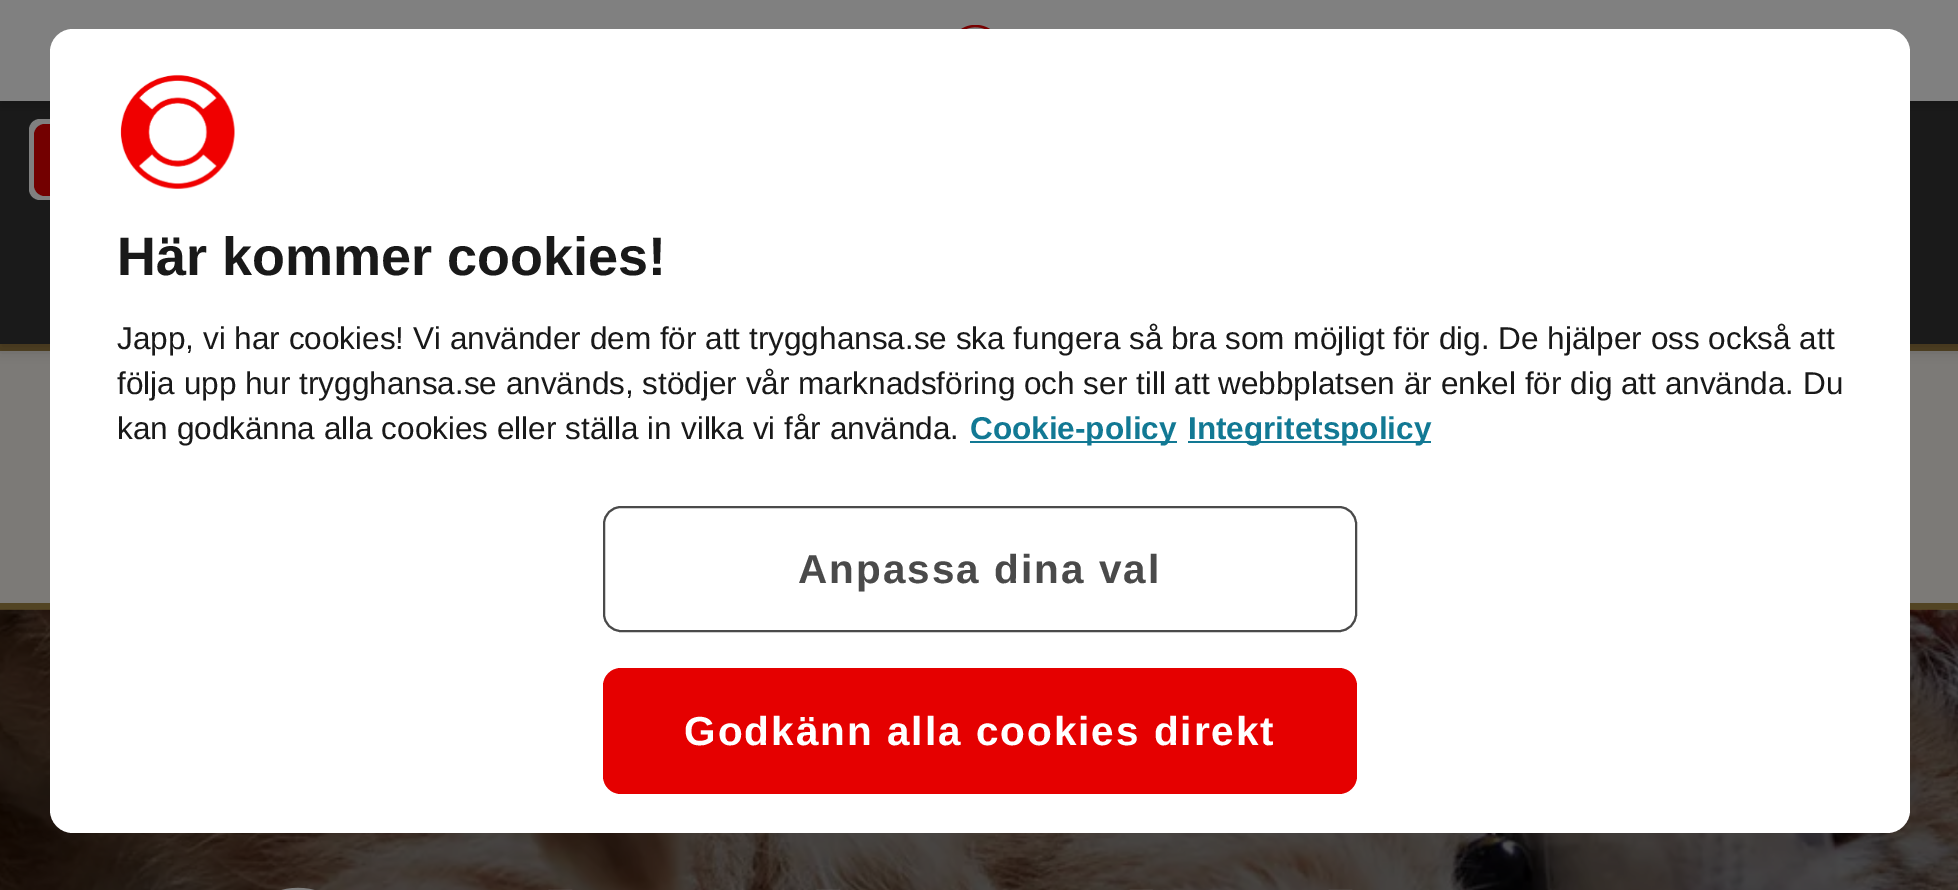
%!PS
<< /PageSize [1958 890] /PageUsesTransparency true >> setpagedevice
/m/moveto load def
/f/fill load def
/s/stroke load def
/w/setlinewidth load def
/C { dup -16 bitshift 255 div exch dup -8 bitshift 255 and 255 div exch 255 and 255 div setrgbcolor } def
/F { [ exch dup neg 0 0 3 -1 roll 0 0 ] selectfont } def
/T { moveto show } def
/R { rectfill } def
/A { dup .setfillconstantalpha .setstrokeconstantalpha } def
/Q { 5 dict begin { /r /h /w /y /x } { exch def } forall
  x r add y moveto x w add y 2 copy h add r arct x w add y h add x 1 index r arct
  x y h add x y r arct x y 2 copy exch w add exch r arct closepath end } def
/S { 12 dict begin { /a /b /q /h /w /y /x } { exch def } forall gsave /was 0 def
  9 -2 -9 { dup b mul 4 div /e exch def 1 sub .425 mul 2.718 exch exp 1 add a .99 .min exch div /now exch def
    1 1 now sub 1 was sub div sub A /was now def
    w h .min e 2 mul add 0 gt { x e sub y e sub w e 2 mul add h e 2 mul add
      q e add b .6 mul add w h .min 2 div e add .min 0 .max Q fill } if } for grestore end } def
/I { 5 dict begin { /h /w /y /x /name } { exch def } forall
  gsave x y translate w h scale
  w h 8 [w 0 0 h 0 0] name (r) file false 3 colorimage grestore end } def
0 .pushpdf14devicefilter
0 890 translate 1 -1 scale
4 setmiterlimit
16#7C7A77 C
0 0 1958 890 R
16#524423 C
0 344 1958 7 R
16#000000 C
0 5 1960 344 0 7 .2 S
16#1A1A1A C
0 101 1958 243 R
16#808080 C
29 119 324 81 11 Q f
16#730000 C
34 124 137 72 11 Q f
16#000000 C
0 5 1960 101 0 7 .2 S
16#808080 C
0 0 1958 101 R
(1.rgb) 961 25 29 4 I
16#524423 C
0 603 1958 7 R
(3.rgb) 0 609 1958 281 I
16#FFFFFF C
50 29 1860 804 23 Q f
(2.rgb) 120 74 115 115 I
/LiberationSans-Bold 54 F
16#191919 C
(Här kommer cookies!) 117 275 T
/LiberationSans-Regular 31.5 F
(Japp, vi har cookies! Vi använder dem för att trygghansa.se ska fungera så bra som möjligt för dig. De hjälper oss också att) 117 349 T
(följa upp hur trygghansa.se används, stödjer vår marknadsföring och ser till att webbplatsen är enkel för dig att använda. Du) 117 394 T
(kan godkänna alla cookies eller ställa in vilka vi får använda.) 117 439 T
16#127994 C
970 441 207 2 R
/LiberationSans-Bold 31.5 F
(Cookie-policy) 970 439 T
1188 441 243 2 R
(Integritetspolicy) 1188 439 T
16#4A4A4A C
2 w
604 507 752 124 17 Q s
/LiberationSans-Bold 40.5 F
798 583 m 2 0 (Anpassa dina val) ashow
16#E50000 C
603 668 754 126 18 Q f
16#FFFFFF C
684 745 m 2 0 (Godkänn alla cookies direkt) ashow
(4.rgb) 281 887 1072 3 I
.poppdf14devicefilter showpage
